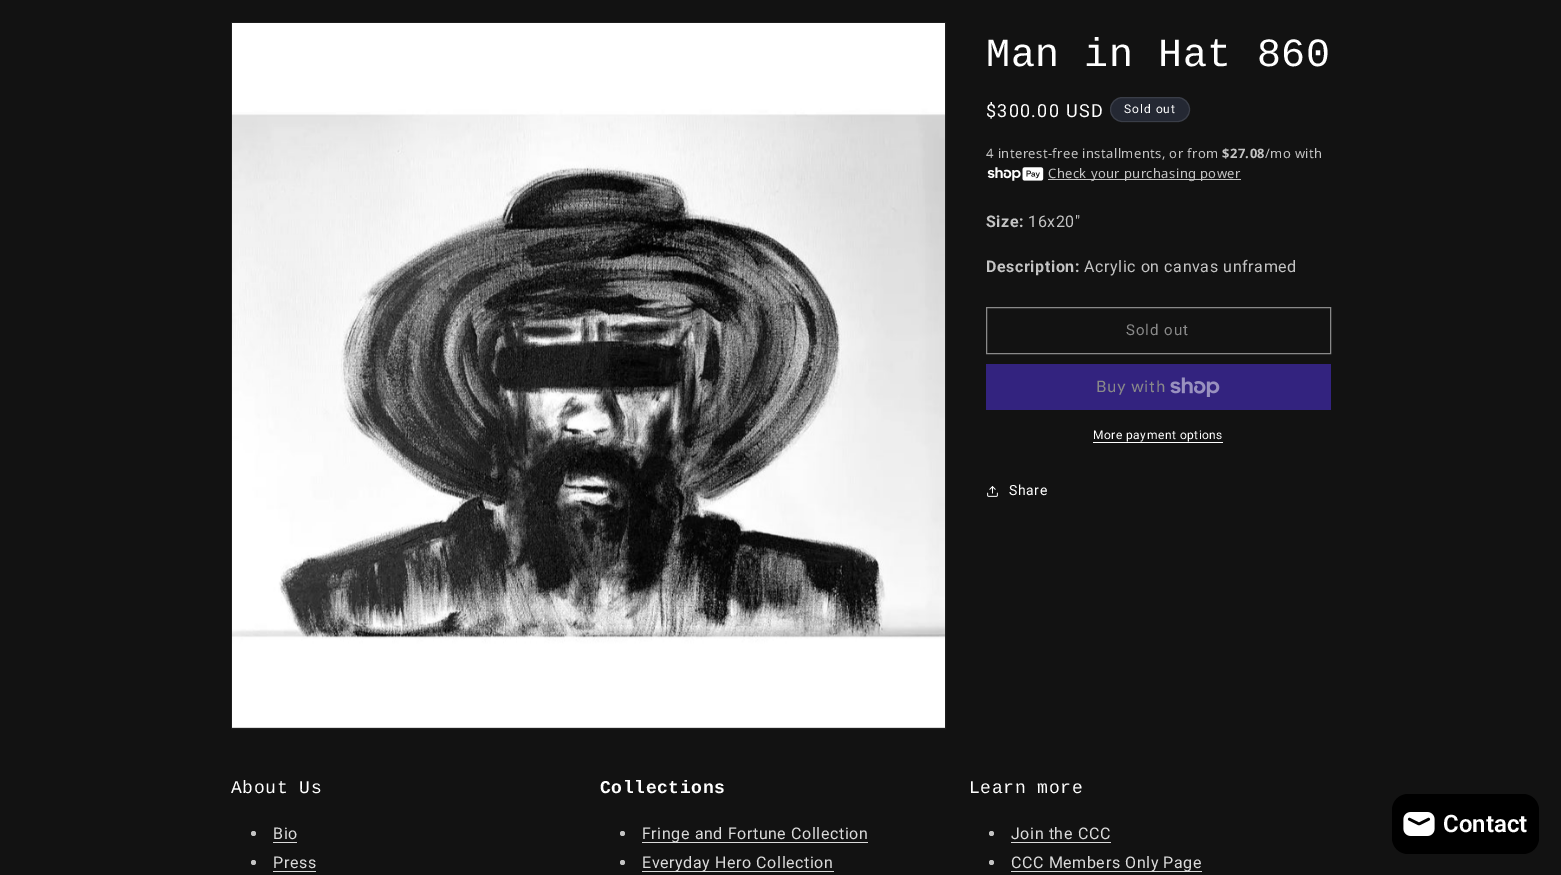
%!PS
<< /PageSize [1561 875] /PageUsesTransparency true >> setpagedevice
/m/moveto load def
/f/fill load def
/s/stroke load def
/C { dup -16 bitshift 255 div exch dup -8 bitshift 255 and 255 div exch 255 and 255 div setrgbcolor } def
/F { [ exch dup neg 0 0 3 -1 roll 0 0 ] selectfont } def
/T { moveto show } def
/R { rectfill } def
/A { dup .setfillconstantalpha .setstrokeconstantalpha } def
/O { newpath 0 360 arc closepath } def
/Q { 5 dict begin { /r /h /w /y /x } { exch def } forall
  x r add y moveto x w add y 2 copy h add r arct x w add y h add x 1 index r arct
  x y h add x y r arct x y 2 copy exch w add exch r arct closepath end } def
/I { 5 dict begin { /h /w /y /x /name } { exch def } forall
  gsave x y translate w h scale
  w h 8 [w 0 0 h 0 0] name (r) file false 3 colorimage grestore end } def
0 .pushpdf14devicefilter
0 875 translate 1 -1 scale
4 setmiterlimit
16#121212 C
0 0 1561 875 R
16#1E1E1E C
231.5 22.5 714 706 rectstroke
(1.rgb) 232 23 713 705 I
/LiberationMono-Regular 40 F
16#FFFFFF C
986 66 m .6 0 (Man in Hat 860) ashow
/Roboto-Regular 18 F
986 117 m 1.25 0 ($300.00 USD) ashow
16#242833 C
1110 97 80 25 12.5 Q f
0.1 A
16#FFFFFF C
1110.5 97.5 79 24 12 Q s
/Roboto-Regular 12 F
1 A
1124 113 m 1 0 (Sold out) ashow
/NotoSans-Regular 13 F
16#C4C4C4 C
986 158 m .4 0 (4 interest-free installments, or from) ashow
/NotoSans-Bold 13 F
1222 158 m .4 0 ($27.08) ashow
/NotoSans-Regular 13 F
1265 158 m .4 0 (/mo with) ashow
(2.rgb) 987 167 57 14 I
1048 179 193 1 R
1048 178 m .4 0 (Check your purchasing power) ashow
/Roboto-Bold 16 F
986 227 m .6 0 (Size:) ashow
/Roboto-Regular 16 F
1028 227 m .6 0 (16x20") ashow
/Roboto-Bold 16 F
986 272 m .6 0 (Description:) ashow
/Roboto-Regular 16 F
1084 272 m .6 0 (Acrylic on canvas unframed) ashow
16#898989 C
986.5 307.5 344 46 rectstroke
/Roboto-Regular 15 F
1126 335 m 1 0 (Sold out) ashow
16#33237F C
986 364 345 46 R
/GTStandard-Regular 16 F
16#898989 C
1096 392 m .6 0 (Buy with) ashow
(3.rgb) 1170 377 50 20 I
/Roboto-Regular 12 F
16#FFFFFF C
1093 439 m .5 0 (More payment options) ashow
1093 442 130 1 R
(4.rgb) 987 486 11 11 I
/Roboto-Regular 14 F
1009 495 m .6 0 (Share) ashow
/LiberationMono-Regular 18 F
231 793 m .6 0 (About Us) ashow
16#C4C4C4 C
253.5 833.5 2.5 O f
/Roboto-Regular 16 F
16#DBDBDB C
273 839 m .6 0 (Bio) ashow
273 842 24 1 R
16#C4C4C4 C
253.5 862.5 2.5 O f
16#DBDBDB C
273 868 m .6 0 (Press) ashow
273 871 43 1 R
/LiberationMono-Bold 18 F
16#FFFFFF C
600 793 m .6 0 (Collections) ashow
16#C4C4C4 C
622.5 833.5 2.5 O f
16#DBDBDB C
642 842 226 1 R
/Roboto-Regular 16 F
642 839 m .6 0 (Fringe and Fortune Collection) ashow
16#C4C4C4 C
622.5 862.5 2.5 O f
16#DBDBDB C
642 871 192 1 R
642 868 m .6 0 (Everyday Hero Collection) ashow
/LiberationMono-Regular 18 F
16#FFFFFF C
969 793 m .6 0 (Learn more) ashow
16#C4C4C4 C
991.5 833.5 2.5 O f
/Roboto-Regular 16 F
16#DBDBDB C
1011 839 m .6 0 (Join the CCC) ashow
1011 842 100 1 R
16#C4C4C4 C
991.5 862.5 2.5 O f
16#DBDBDB C
1011 871 191 1 R
1011 868 m .6 0 (CCC Members Only Page) ashow
16#000000 C
1392 794 147 60 16 Q f
(5.rgb) 1403 812 32 24 I
/Roboto-SemiBold 24 F
16#FFFFFF C
(Contact) 1443 832 T
.poppdf14devicefilter showpage
